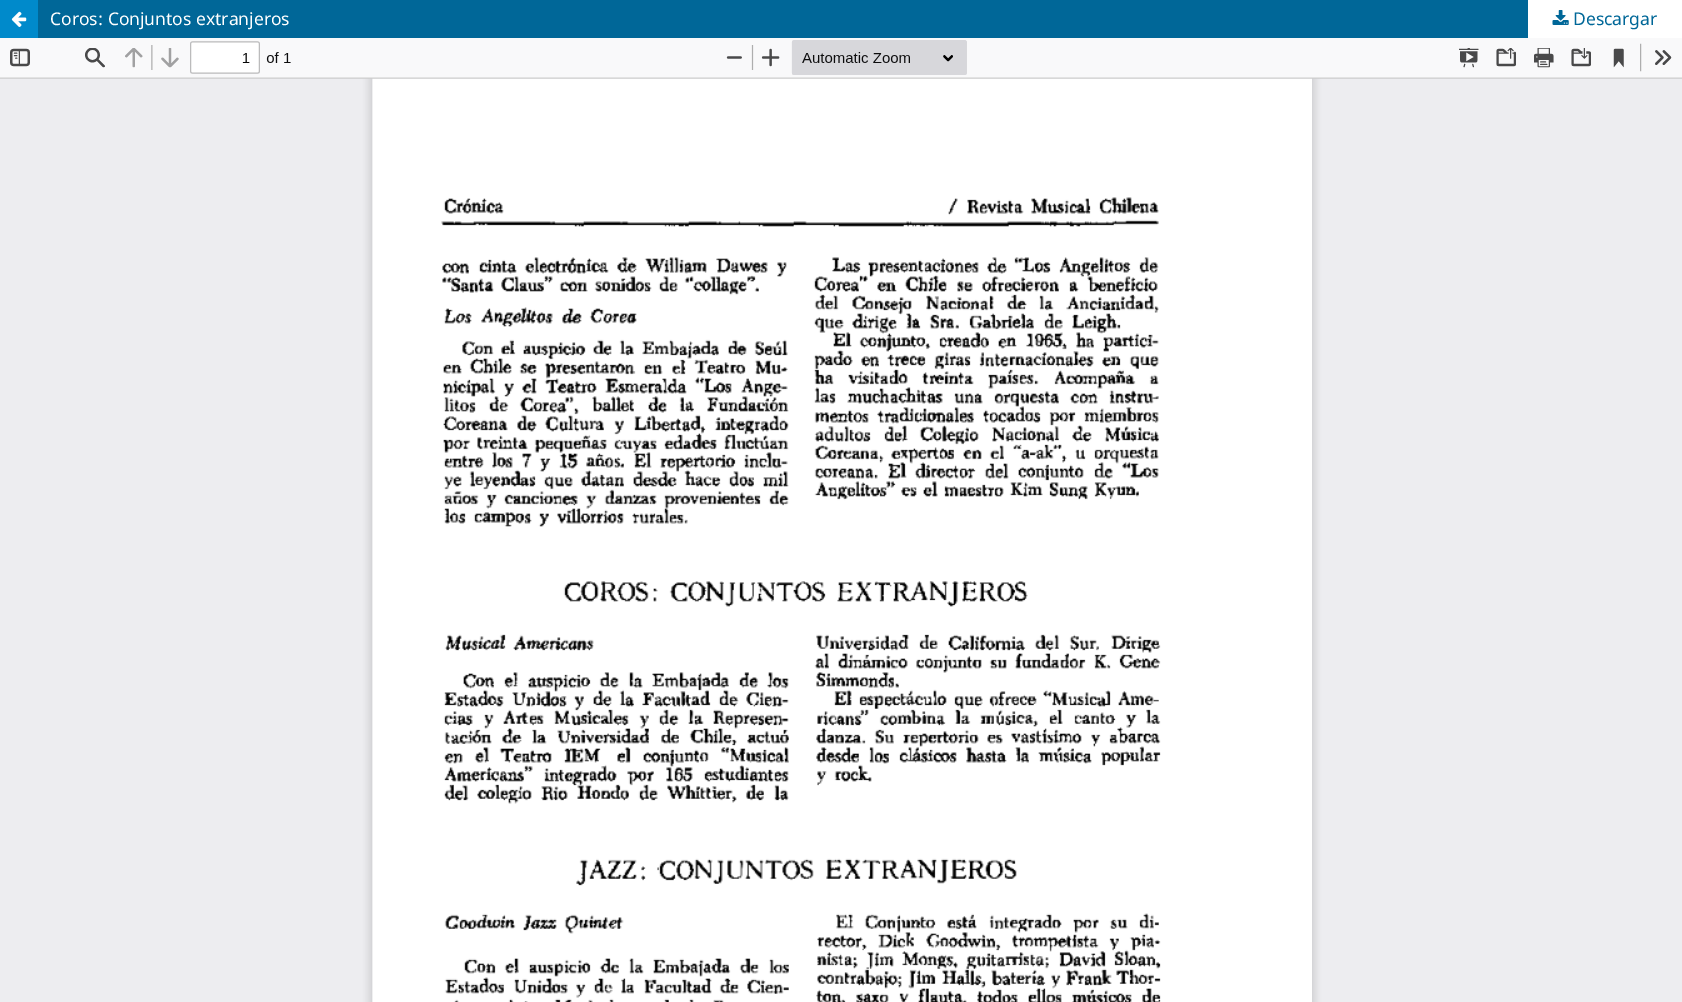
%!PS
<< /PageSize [1682 1002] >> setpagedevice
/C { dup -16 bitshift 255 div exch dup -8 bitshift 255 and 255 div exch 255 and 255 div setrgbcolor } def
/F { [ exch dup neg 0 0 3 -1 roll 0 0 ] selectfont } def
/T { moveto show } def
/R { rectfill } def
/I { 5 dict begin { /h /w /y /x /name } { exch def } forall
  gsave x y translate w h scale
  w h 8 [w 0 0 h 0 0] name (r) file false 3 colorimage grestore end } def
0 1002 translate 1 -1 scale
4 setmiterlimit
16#FFFFFF C
0 0 1682 1002 R
16#006798 C
38 0 1490 38 R
16#008ACB C
0 0 38 38 R
(1.rgb) 11 11 16 16 I
/NotoSans-Regular 17.5 F
16#FFFFFF C
(Coros: Conjuntos extranjeros) 50 25 T
(2.rgb) 1552 10 17 15 I
16#006798 C
(Descargar) 1573 25 T
(3.rgb) 0 38 1682 964 I
showpage
